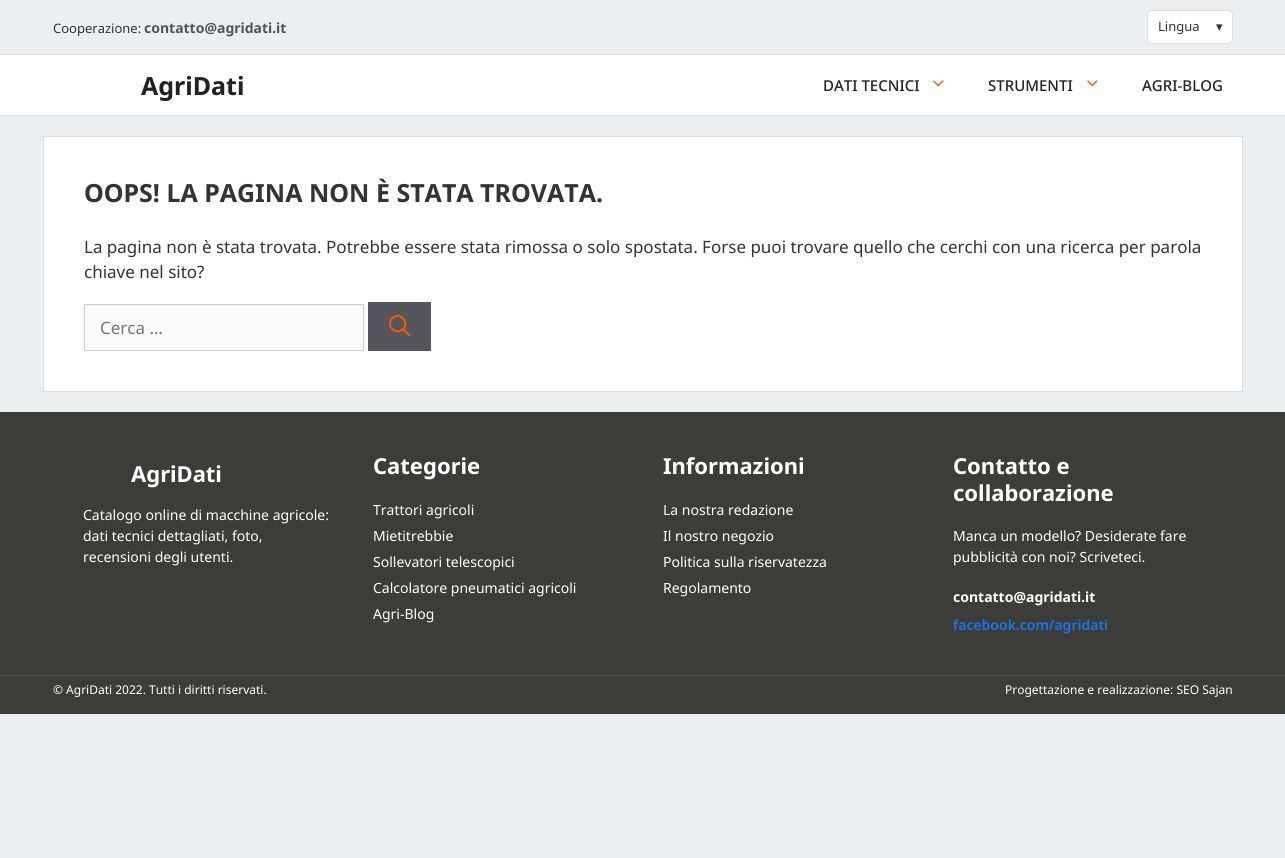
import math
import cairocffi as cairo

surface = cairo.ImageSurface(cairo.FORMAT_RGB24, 1285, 858)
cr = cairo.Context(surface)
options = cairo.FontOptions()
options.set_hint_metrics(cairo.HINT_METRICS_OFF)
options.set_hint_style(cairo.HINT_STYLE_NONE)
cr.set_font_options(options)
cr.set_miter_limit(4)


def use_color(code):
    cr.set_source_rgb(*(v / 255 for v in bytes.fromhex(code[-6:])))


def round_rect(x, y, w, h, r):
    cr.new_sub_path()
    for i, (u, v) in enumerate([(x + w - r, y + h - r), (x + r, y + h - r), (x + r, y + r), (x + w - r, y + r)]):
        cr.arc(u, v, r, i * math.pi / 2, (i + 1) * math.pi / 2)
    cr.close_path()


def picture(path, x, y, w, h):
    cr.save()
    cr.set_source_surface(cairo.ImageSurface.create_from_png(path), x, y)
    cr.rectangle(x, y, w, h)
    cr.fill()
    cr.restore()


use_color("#eceff1")
cr.paint()
use_color("#dddddd")
cr.rectangle(0, 54, 1285, 1)
cr.fill()
cr.select_font_face("Noto Sans")
cr.set_font_size(13)
use_color("#333333")
cr.move_to(53, 33)
cr.show_text("Cooperazione:")
cr.select_font_face("Noto Sans", cairo.FONT_SLANT_NORMAL, cairo.FONT_WEIGHT_BOLD)
cr.set_font_size(14)
use_color("#555555")
cr.move_to(144, 33)
cr.show_text("contatto@agridati.it")
use_color("#ffffff")
round_rect(1147.5, 10.5, 85, 33, 4.5)
cr.fill_preserve()
use_color("#dddddd")
cr.set_line_width(1)
cr.stroke()
cr.select_font_face("Noto Sans")
cr.set_font_size(13)
use_color("#333333")
cr.move_to(1158, 31)
cr.show_text("Lingua")
cr.select_font_face("DejaVu Sans")
cr.move_to(1216, 31)
cr.show_text("▾")
use_color("#ffffff")
cr.rectangle(0, 55, 1285, 60)
cr.fill()
use_color("#dddddd")
cr.rectangle(0, 115, 1285, 1)
cr.fill()
cr.select_font_face("Noto Sans", cairo.FONT_SLANT_NORMAL, cairo.FONT_WEIGHT_BOLD)
cr.set_font_size(25)
use_color("#222222")
cr.move_to(141, 95)
cr.show_text("AgriDati")
cr.select_font_face("Noto Sans Medium")
cr.set_font_size(15)
cr.move_to(823, 91)
cr.show_text("DATI TECNICI")
picture("img1.png", 933, 80, 11, 7)
cr.move_to(988, 91)
cr.show_text("STRUMENTI")
picture("img1.png", 1087, 80, 11, 7)
cr.move_to(1142, 91)
cr.show_text("AGRI-BLOG")
use_color("#ffffff")
cr.rectangle(43.5, 136.5, 1199, 255)
cr.fill_preserve()
use_color("#dddddd")
cr.stroke()
cr.select_font_face("Noto Sans", cairo.FONT_SLANT_NORMAL, cairo.FONT_WEIGHT_BOLD)
cr.set_font_size(25)
use_color("#333333")
cr.move_to(84, 202)
cr.show_text("OOPS! LA PAGINA NON È STATA TROVATA.")
cr.select_font_face("Noto Sans")
cr.set_font_size(17)
cr.move_to(84, 253)
cr.show_text("La pagina non è stata trovata. Potrebbe essere stata rimossa o solo spostata. Forse puoi trovare quello che cerchi con una ricerca per parola")
cr.move_to(84, 278)
cr.show_text("chiave nel sito?")
use_color("#fafafa")
cr.rectangle(84.5, 304.5, 279, 46)
cr.fill_preserve()
use_color("#cccccc")
cr.stroke()
use_color("#757575")
cr.move_to(100, 334)
cr.show_text("Cerca …")
use_color("#55555e")
cr.rectangle(368, 302, 63, 49)
cr.fill()
picture("img2.png", 389, 315, 21, 21)
use_color("#3c3d38")
cr.rectangle(0, 412, 1285, 263)
cr.fill()
use_color("#555555")
cr.rectangle(0, 675, 1285, 1)
cr.fill()
cr.select_font_face("Noto Sans", cairo.FONT_SLANT_NORMAL, cairo.FONT_WEIGHT_BOLD)
cr.set_font_size(22)
use_color("#ffffff")
cr.move_to(131, 482)
cr.show_text("AgriDati")
cr.select_font_face("Noto Sans")
cr.set_font_size(14)
cr.move_to(83, 520)
cr.show_text("Catalogo online di macchine agricole:")
cr.move_to(83, 541)
cr.show_text("dati tecnici dettagliati, foto,")
cr.move_to(83, 562)
cr.show_text("recensioni degli utenti.")
cr.select_font_face("Noto Sans", cairo.FONT_SLANT_NORMAL, cairo.FONT_WEIGHT_BOLD)
cr.set_font_size(22)
cr.move_to(373, 474)
cr.show_text("Categorie")
cr.select_font_face("Noto Sans")
cr.set_font_size(14)
cr.move_to(373, 515)
cr.show_text("Trattori agricoli")
cr.move_to(373, 541)
cr.show_text("Mietitrebbie")
cr.move_to(373, 567)
cr.show_text("Sollevatori telescopici")
cr.move_to(373, 593)
cr.show_text("Calcolatore pneumatici agricoli")
cr.move_to(373, 619)
cr.show_text("Agri-Blog")
cr.select_font_face("Noto Sans", cairo.FONT_SLANT_NORMAL, cairo.FONT_WEIGHT_BOLD)
cr.set_font_size(22)
cr.move_to(663, 474)
cr.show_text("Informazioni")
cr.select_font_face("Noto Sans")
cr.set_font_size(14)
cr.move_to(663, 515)
cr.show_text("La nostra redazione")
cr.move_to(663, 541)
cr.show_text("Il nostro negozio")
cr.move_to(663, 567)
cr.show_text("Politica sulla riservatezza")
cr.move_to(663, 593)
cr.show_text("Regolamento")
cr.select_font_face("Noto Sans", cairo.FONT_SLANT_NORMAL, cairo.FONT_WEIGHT_BOLD)
cr.set_font_size(22)
cr.move_to(953, 474)
cr.show_text("Contatto e")
cr.move_to(953, 501)
cr.show_text("collaborazione")
cr.select_font_face("Noto Sans")
cr.set_font_size(14)
cr.move_to(953, 541)
cr.show_text("Manca un modello? Desiderate fare")
cr.move_to(953, 562)
cr.show_text("pubblicità con noi? Scriveteci.")
cr.select_font_face("Noto Sans", cairo.FONT_SLANT_NORMAL, cairo.FONT_WEIGHT_BOLD)
cr.move_to(953, 602)
cr.show_text("contatto@agridati.it")
cr.select_font_face("Noto Sans SemiBold")
use_color("#1877f2")
cr.move_to(953, 630)
cr.show_text("facebook.com/agridati")
use_color("#3c3d38")
cr.rectangle(0, 676, 1285, 38)
cr.fill()
cr.select_font_face("Noto Sans")
cr.set_font_size(12)
use_color("#ffffff")
cr.move_to(53, 694)
cr.show_text("© AgriDati 2022. Tutti i diritti riservati.")
cr.move_to(1005, 694)
cr.show_text("Progettazione e realizzazione: SEO Sajan")
surface.write_to_png("result.png")
